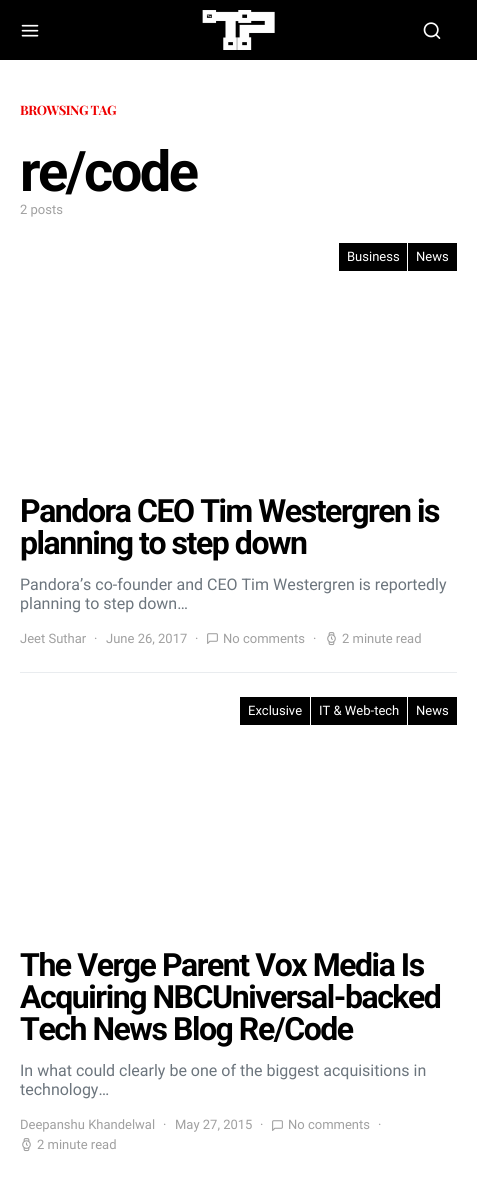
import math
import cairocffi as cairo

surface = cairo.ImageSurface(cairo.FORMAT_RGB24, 477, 1178)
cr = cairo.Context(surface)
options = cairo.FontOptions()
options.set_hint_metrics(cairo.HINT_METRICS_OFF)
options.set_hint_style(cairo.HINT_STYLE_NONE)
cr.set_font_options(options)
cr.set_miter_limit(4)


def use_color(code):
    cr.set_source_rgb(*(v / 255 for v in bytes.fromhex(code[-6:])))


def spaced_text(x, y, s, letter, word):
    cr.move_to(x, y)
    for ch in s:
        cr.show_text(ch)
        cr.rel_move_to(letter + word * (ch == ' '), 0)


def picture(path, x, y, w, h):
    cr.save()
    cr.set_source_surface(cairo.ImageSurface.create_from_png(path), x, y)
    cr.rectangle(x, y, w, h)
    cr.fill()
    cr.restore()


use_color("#ffffff")
cr.paint()
use_color("#000000")
cr.rectangle(0, 0, 477, 60)
cr.fill()
picture("img1.png", 21, 24, 18, 13)
picture("img2.png", 202, 10, 73, 40)
picture("img3.png", 423, 22, 18, 17)
cr.select_font_face("Playfair Display", cairo.FONT_SLANT_NORMAL, cairo.FONT_WEIGHT_BOLD)
cr.set_font_size(13)
use_color("#ef0000")
spaced_text(20, 115, "BROWSING TAG", -0.5, 0)
cr.select_font_face("Roboto", cairo.FONT_SLANT_NORMAL, cairo.FONT_WEIGHT_BOLD)
cr.set_font_size(56)
use_color("#000000")
spaced_text(20, 191, "re/code", -2.5, 0)
cr.select_font_face("Roboto")
cr.set_font_size(13)
use_color("#a0a0a0")
cr.move_to(20, 214)
cr.show_text("2 posts")
use_color("#000000")
cr.rectangle(339, 243, 68, 28)
cr.fill()
use_color("#ffffff")
cr.move_to(347, 261)
cr.show_text("Business")
use_color("#000000")
cr.rectangle(408, 243, 49, 28)
cr.fill()
use_color("#ffffff")
cr.move_to(416, 261)
cr.show_text("News")
cr.select_font_face("Roboto", cairo.FONT_SLANT_NORMAL, cairo.FONT_WEIGHT_BOLD)
cr.set_font_size(32)
use_color("#000000")
spaced_text(20, 522, "Pandora CEO Tim Westergren is", -1.45, 0)
spaced_text(20, 554, "planning to step down", -1.45, 0)
cr.select_font_face("Roboto")
cr.set_font_size(16)
use_color("#6c757d")
cr.move_to(20, 590)
cr.show_text("Pandora’s co-founder and CEO Tim Westergren is reportedly")
cr.move_to(20, 609)
cr.show_text("planning to step down…")
cr.set_font_size(13)
use_color("#a0a0a0")
cr.move_to(20, 643)
cr.show_text("Jeet Suthar")
cr.move_to(94, 643)
cr.show_text("·")
cr.move_to(106, 643)
cr.show_text("June 26, 2017")
cr.move_to(195, 643)
cr.show_text("·")
picture("img4.png", 207, 633, 11, 11)
cr.move_to(223, 643)
cr.show_text("No comments")
cr.move_to(313, 643)
cr.show_text("·")
picture("img5.png", 327, 632, 9, 14)
cr.move_to(342, 643)
cr.show_text("2 minute read")
use_color("#e9ecef")
cr.rectangle(20, 672, 437, 1)
cr.fill()
use_color("#000000")
cr.rectangle(240, 697, 70, 28)
cr.fill()
use_color("#ffffff")
cr.move_to(248, 715)
cr.show_text("Exclusive")
use_color("#000000")
cr.rectangle(311, 697, 96, 28)
cr.fill()
use_color("#ffffff")
cr.move_to(319, 715)
cr.show_text("IT & Web-tech")
use_color("#000000")
cr.rectangle(408, 697, 49, 28)
cr.fill()
use_color("#ffffff")
cr.move_to(416, 715)
cr.show_text("News")
cr.select_font_face("Roboto", cairo.FONT_SLANT_NORMAL, cairo.FONT_WEIGHT_BOLD)
cr.set_font_size(32)
use_color("#000000")
spaced_text(20, 976, "The Verge Parent Vox Media Is", -1.45, 0)
spaced_text(20, 1008, "Acquiring NBCUniversal-backed", -1.45, 0)
spaced_text(20, 1040, "Tech News Blog Re/Code", -1.45, 0)
cr.select_font_face("Roboto")
cr.set_font_size(16)
use_color("#6c757d")
cr.move_to(20, 1076)
cr.show_text("In what could clearly be one of the biggest acquisitions in")
cr.move_to(20, 1095)
cr.show_text("technology…")
cr.set_font_size(13)
use_color("#a0a0a0")
cr.move_to(20, 1129)
cr.show_text("Deepanshu Khandelwal")
cr.move_to(163, 1129)
cr.show_text("·")
cr.move_to(175, 1129)
cr.show_text("May 27, 2015")
cr.move_to(260, 1129)
cr.show_text("·")
picture("img4.png", 272, 1120, 11, 11)
cr.move_to(288, 1129)
cr.show_text("No comments")
cr.move_to(378, 1129)
cr.show_text("·")
picture("img5.png", 22, 1138, 9, 14)
cr.move_to(37, 1149)
cr.show_text("2 minute read")
surface.write_to_png("result.png")
